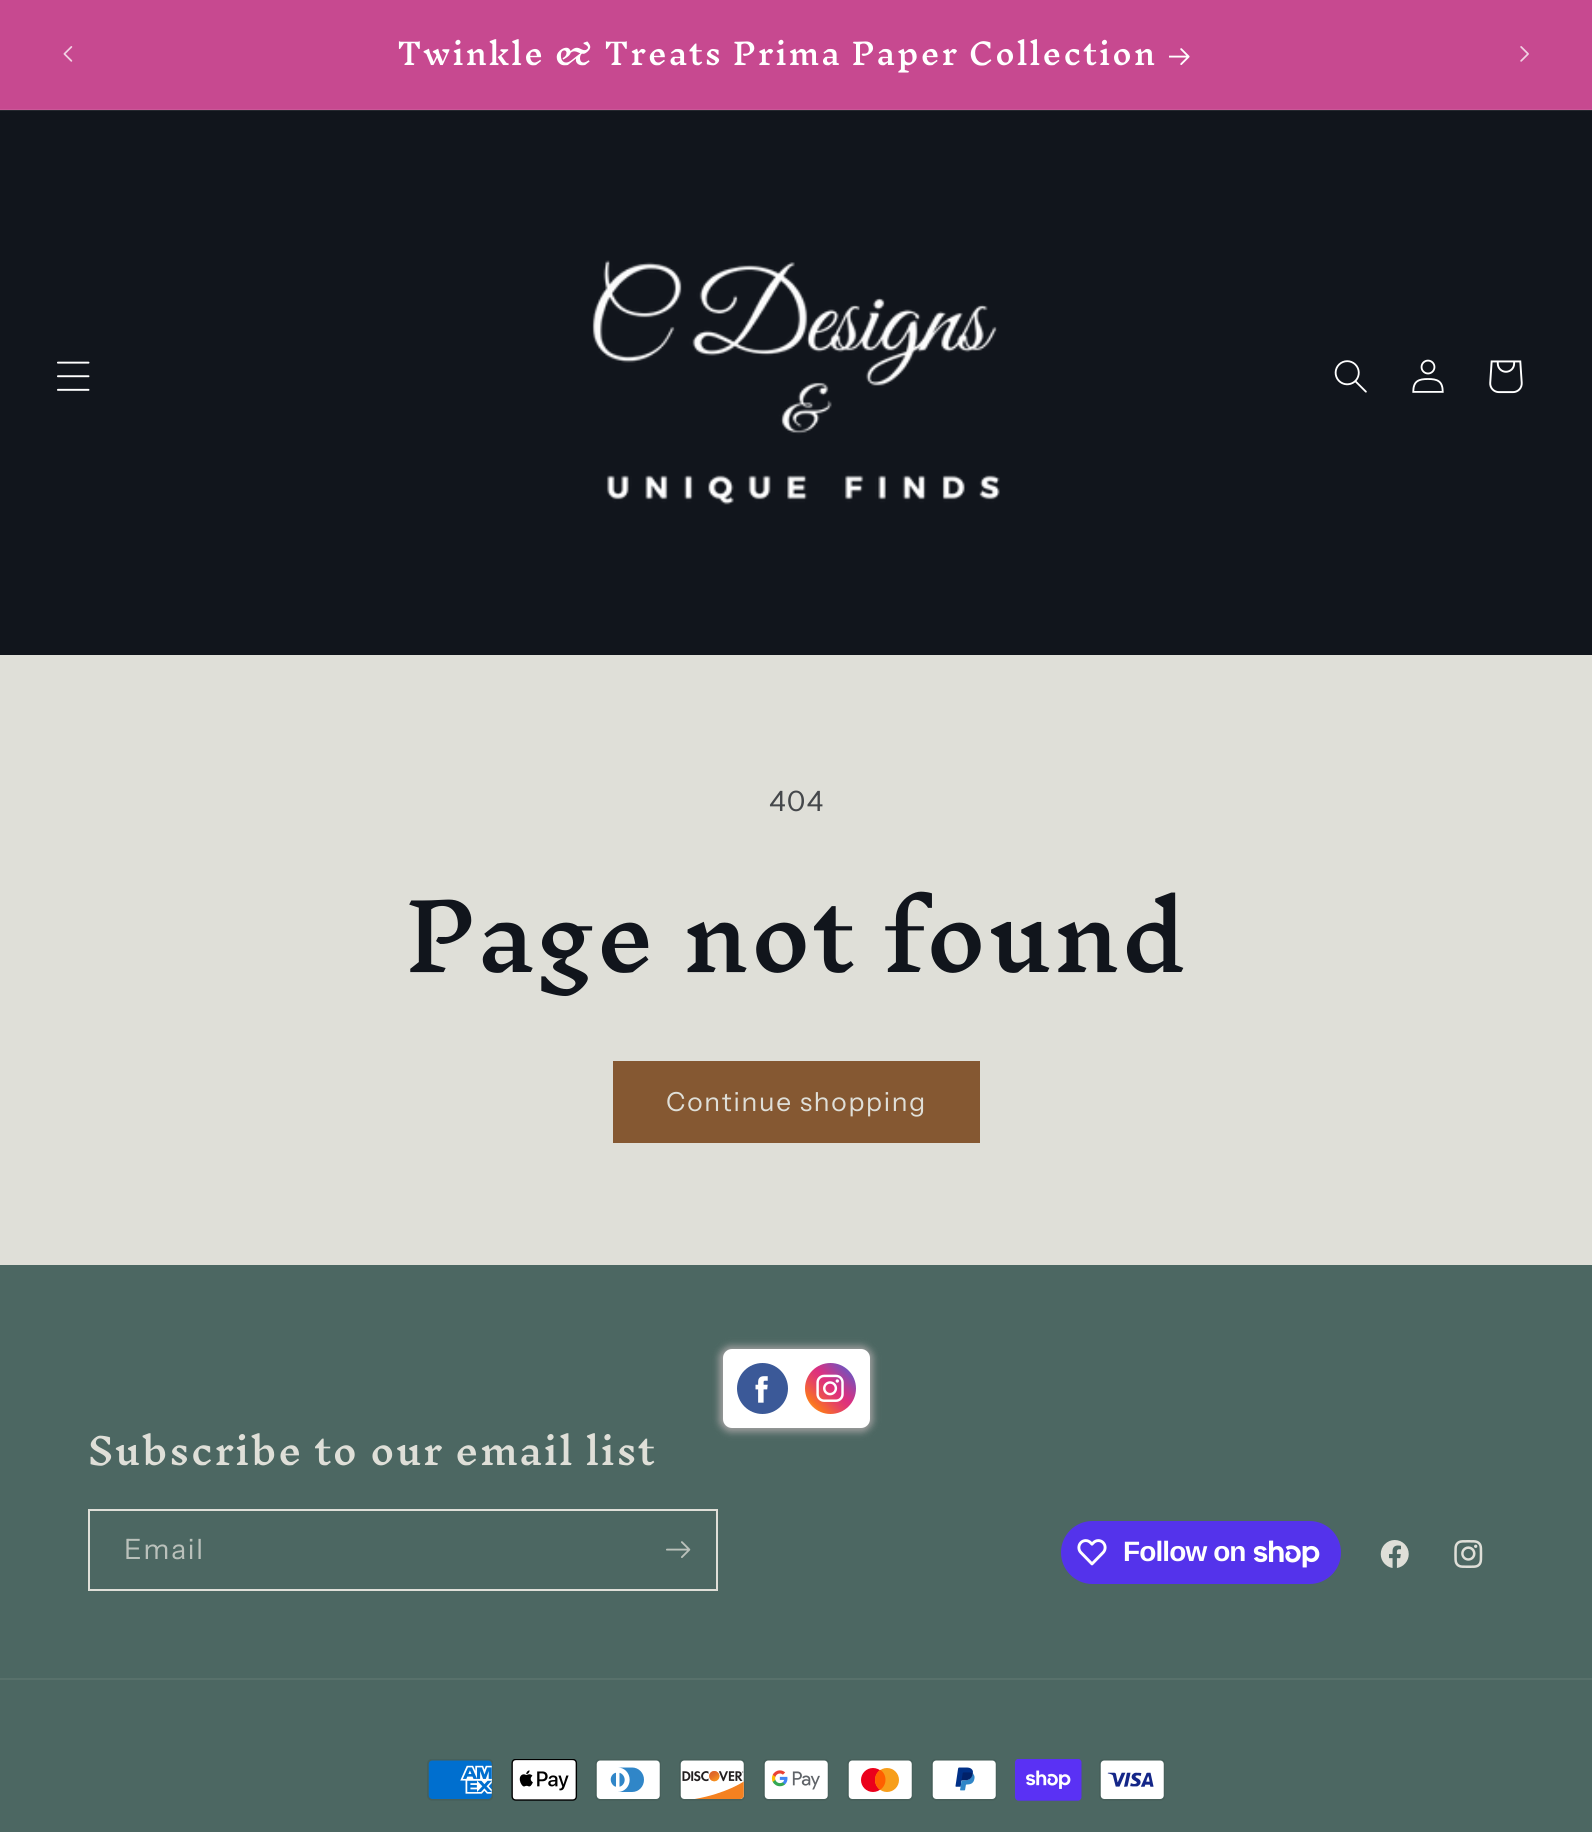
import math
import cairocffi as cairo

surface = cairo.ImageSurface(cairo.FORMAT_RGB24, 1592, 1832)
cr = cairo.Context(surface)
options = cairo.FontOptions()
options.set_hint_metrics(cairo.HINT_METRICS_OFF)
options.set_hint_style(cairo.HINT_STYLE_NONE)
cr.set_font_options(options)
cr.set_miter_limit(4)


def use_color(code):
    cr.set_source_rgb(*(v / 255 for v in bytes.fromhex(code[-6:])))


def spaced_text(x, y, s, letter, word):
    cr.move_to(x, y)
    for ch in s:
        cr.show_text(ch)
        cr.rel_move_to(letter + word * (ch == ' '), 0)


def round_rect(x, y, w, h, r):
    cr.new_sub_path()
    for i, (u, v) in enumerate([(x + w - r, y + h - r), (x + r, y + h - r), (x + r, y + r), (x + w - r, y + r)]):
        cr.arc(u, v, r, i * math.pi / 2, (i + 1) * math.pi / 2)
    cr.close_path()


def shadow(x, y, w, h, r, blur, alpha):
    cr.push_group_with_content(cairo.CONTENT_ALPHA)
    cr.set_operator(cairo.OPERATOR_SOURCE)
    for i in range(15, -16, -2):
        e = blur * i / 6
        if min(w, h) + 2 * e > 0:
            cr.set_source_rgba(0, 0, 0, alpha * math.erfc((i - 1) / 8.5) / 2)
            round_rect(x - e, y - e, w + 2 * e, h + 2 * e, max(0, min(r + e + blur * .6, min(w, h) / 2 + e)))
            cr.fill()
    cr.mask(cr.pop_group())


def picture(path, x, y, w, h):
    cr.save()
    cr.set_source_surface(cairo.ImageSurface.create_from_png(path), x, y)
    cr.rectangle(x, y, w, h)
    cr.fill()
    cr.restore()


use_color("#dfdfd8")
cr.paint()
use_color("#c74990")
cr.rectangle(0, 0, 1592, 109)
cr.fill()
use_color("#cb5899")
cr.rectangle(0, 109, 1592, 1)
cr.fill()
picture("img1.png", 63, 46, 10, 16)
cr.select_font_face("Inknut Antiqua Medium")
cr.set_font_size(29.6)
use_color("#ffffff")
spaced_text(397, 65, "Twinkle & Treats Prima Paper Collection", 1.75, 0)
picture("img2.png", 1169, 48, 21, 17)
picture("img3.png", 1520, 46, 9, 16)
use_color("#11151c")
cr.rectangle(0, 111, 1592, 544)
cr.fill()
use_color("#24282e")
cr.rectangle(0, 110, 1592, 1)
cr.fill()
picture("img4.png", 57, 361, 33, 30)
picture("img5.png", 592, 260, 408, 245)
picture("img6.png", 1334, 360, 33, 33)
picture("img7.png", 1412, 359, 32, 34)
picture("img8.png", 1489, 360, 34, 34)
cr.select_font_face("Instrument Sans")
cr.set_font_size(28)
use_color("#45484b")
spaced_text(769, 811, "404", 1, 0)
cr.select_font_face("Inknut Antiqua Medium")
cr.set_font_size(91)
use_color("#11151c")
spaced_text(405, 972, "Page not found", 1.35, 0)
use_color("#855832")
cr.rectangle(613, 1061, 367, 82)
cr.fill()
cr.select_font_face("Instrument Sans")
cr.set_font_size(26.25)
use_color("#dfdfd8")
spaced_text(666, 1111, "Continue shopping", 1.75, 0)
use_color("#4c6762")
cr.rectangle(0, 1265, 1592, 567)
cr.fill()
use_color("#9e9e9e")
shadow(719, 1346, 154, 86, 12, 3.5, 1)
use_color("#ffffff")
round_rect(723, 1349, 147, 79, 9)
cr.fill()
picture("img9.png", 737, 1363, 51, 51)
picture("img10.png", 805, 1363, 51, 51)
cr.select_font_face("Inknut Antiqua Medium")
cr.set_font_size(36.4)
use_color("#dfdfd8")
spaced_text(88, 1465, "Subscribe to our email list", 1.35, 0)
cr.rectangle(89, 1510, 628, 80)
cr.stroke()
cr.select_font_face("Instrument Sans")
cr.set_font_size(28)
use_color("#bac1bb")
spaced_text(124, 1559, "Email", 1.75, 0)
picture("img11.png", 666, 1541, 25, 17)
use_color("#5433eb")
round_rect(1061, 1521, 280, 63, 31.5)
cr.fill()
picture("img12.png", 1077, 1539, 30, 27)
cr.select_font_face("Liberation Sans", cairo.FONT_SLANT_NORMAL, cairo.FONT_WEIGHT_BOLD)
use_color("#ffffff")
spaced_text(1123, 1561, "Follow on", -0.9, 0)
picture("img13.png", 1253, 1540, 67, 28)
picture("img14.png", 1380, 1540, 29, 28)
picture("img15.png", 1454, 1540, 29, 28)
use_color("#58716b")
cr.rectangle(0, 1678, 1592, 2)
cr.fill()
picture("img16.png", 427, 1759, 66, 42)
picture("img17.png", 511, 1759, 67, 42)
picture("img18.png", 595, 1759, 66, 42)
picture("img19.png", 679, 1759, 66, 42)
picture("img20.png", 763, 1759, 66, 42)
picture("img21.png", 847, 1759, 66, 42)
picture("img22.png", 931, 1759, 66, 42)
picture("img23.png", 1015, 1759, 67, 42)
picture("img24.png", 1099, 1759, 66, 42)
surface.write_to_png("result.png")
